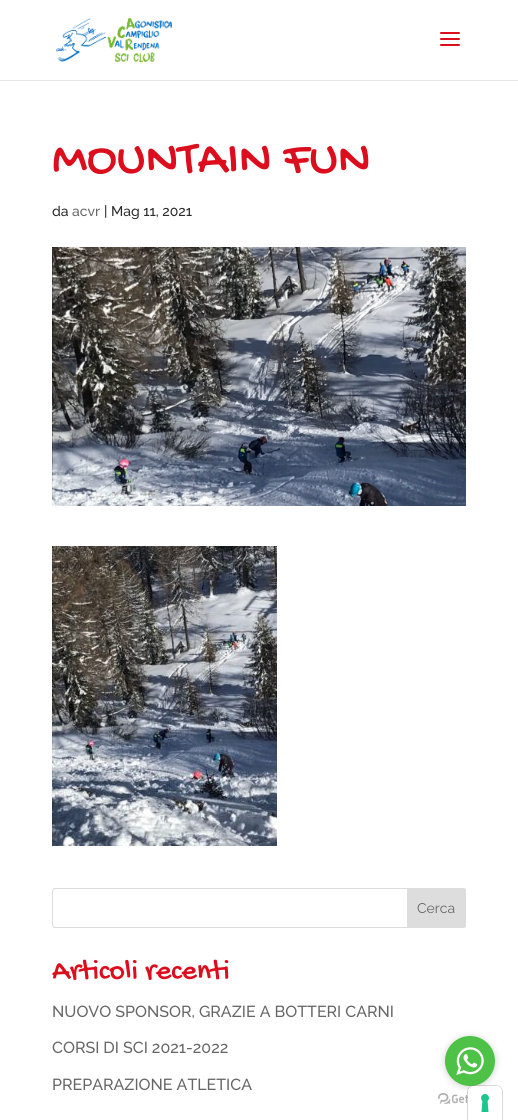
import math
import cairocffi as cairo

surface = cairo.ImageSurface(cairo.FORMAT_RGB24, 518, 1120)
cr = cairo.Context(surface)
options = cairo.FontOptions()
options.set_hint_metrics(cairo.HINT_METRICS_OFF)
options.set_hint_style(cairo.HINT_STYLE_NONE)
cr.set_font_options(options)
cr.set_miter_limit(4)


def use_color(code):
    cr.set_source_rgb(*(v / 255 for v in bytes.fromhex(code[-6:])))


def round_rect(x, y, w, h, r):
    cr.new_sub_path()
    for i, (u, v) in enumerate([(x + w - r, y + h - r), (x + r, y + h - r), (x + r, y + r), (x + w - r, y + r)]):
        cr.arc(u, v, r, i * math.pi / 2, (i + 1) * math.pi / 2)
    cr.close_path()


def shadow(x, y, w, h, r, blur, alpha):
    cr.push_group_with_content(cairo.CONTENT_ALPHA)
    cr.set_operator(cairo.OPERATOR_SOURCE)
    for i in range(15, -16, -2):
        e = blur * i / 6
        if min(w, h) + 2 * e > 0:
            cr.set_source_rgba(0, 0, 0, alpha * math.erfc((i - 1) / 8.5) / 2)
            round_rect(x - e, y - e, w + 2 * e, h + 2 * e, max(0, min(r + e + blur * .6, min(w, h) / 2 + e)))
            cr.fill()
    cr.mask(cr.pop_group())


def picture(path, x, y, w, h):
    cr.save()
    cr.set_source_surface(cairo.ImageSurface.create_from_png(path), x, y)
    cr.rectangle(x, y, w, h)
    cr.fill()
    cr.restore()


use_color("#ffffff")
cr.paint()
use_color("#e6e6e6")
cr.rectangle(0, 80, 518, 1)
cr.fill()
picture("img1.png", 56, 18, 116, 44)
picture("img2.png", 440, 32, 20, 14)
cr.select_font_face("Gochi Hand")
cr.set_font_size(50)
use_color("#dc0d1d")
cr.move_to(52, 171)
cr.show_text("MOUNTAIN FUN")
cr.select_font_face("Raleway Thin")
cr.set_font_size(14)
use_color("#2b2b2b")
cr.move_to(52, 216)
cr.show_text("da")
use_color("#666666")
cr.move_to(72, 216)
cr.show_text("acvr")
use_color("#2b2b2b")
cr.move_to(104, 216)
cr.show_text("| Mag 11, 2021")
picture("img3.png", 52, 247, 414, 259)
picture("img4.png", 52, 546, 225, 300)
round_rect(52.5, 888.5, 413, 39, 2.5)
use_color("#dddddd")
cr.set_line_width(1)
cr.stroke()
cr.new_path()
cr.move_to(407.5, 888.5)
cr.line_to(463, 888.5)
cr.curve_to(464.5, 888.5, 465.5, 889.5, 465.5, 891)
cr.line_to(465.5, 925)
cr.curve_to(465.5, 926.5, 464.5, 927.5, 463, 927.5)
cr.line_to(407.5, 927.5)
cr.close_path()
cr.fill_preserve()
cr.stroke()
cr.select_font_face("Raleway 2 Thin")
use_color("#666666")
cr.move_to(417, 913)
cr.show_text("Cerca")
cr.select_font_face("Gochi Hand")
cr.set_font_size(30)
use_color("#dc0d1d")
cr.move_to(52, 978)
cr.show_text("Articoli recenti")
cr.select_font_face("Raleway Thin")
cr.set_font_size(16)
use_color("#666666")
cr.move_to(52, 1017)
cr.show_text("NUOVO SPONSOR, GRAZIE A BOTTERI CARNI")
cr.move_to(52, 1053)
cr.show_text("CORSI DI SCI 2021-2022")
cr.move_to(52, 1090)
cr.show_text("PREPARAZIONE ATLETICA")
picture("img6.png", 438, 1093, 30, 11)
use_color("#888888")
shadow(445, 1037, 50, 50, 25, 3.5, 0.4)
use_color("#4dc247")
cr.arc(470, 1061, 25, 0, 2 * math.pi)
cr.fill()
picture("img5.png", 456, 1047, 28, 28)
cr.new_path()
cr.move_to(474, 1085.5)
cr.line_to(496, 1085.5)
cr.curve_to(499.5, 1085.5, 502.5, 1088.5, 502.5, 1092)
cr.line_to(502.5, 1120.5)
cr.line_to(467.5, 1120.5)
cr.line_to(467.5, 1092)
cr.curve_to(467.5, 1088.5, 470.5, 1085.5, 474, 1085.5)
cr.close_path()
cr.set_source_rgba(0, 0, 0, 0.15)
cr.stroke()
use_color("#ffffff")
cr.new_path()
cr.move_to(474, 1086)
cr.line_to(496, 1086)
cr.curve_to(499.5, 1086, 502, 1088.5, 502, 1092)
cr.line_to(502, 1120)
cr.line_to(468, 1120)
cr.line_to(468, 1092)
cr.curve_to(468, 1088.5, 470.5, 1086, 474, 1086)
cr.close_path()
cr.fill()
picture("img7.png", 481, 1094, 8, 18)
surface.write_to_png("result.png")
